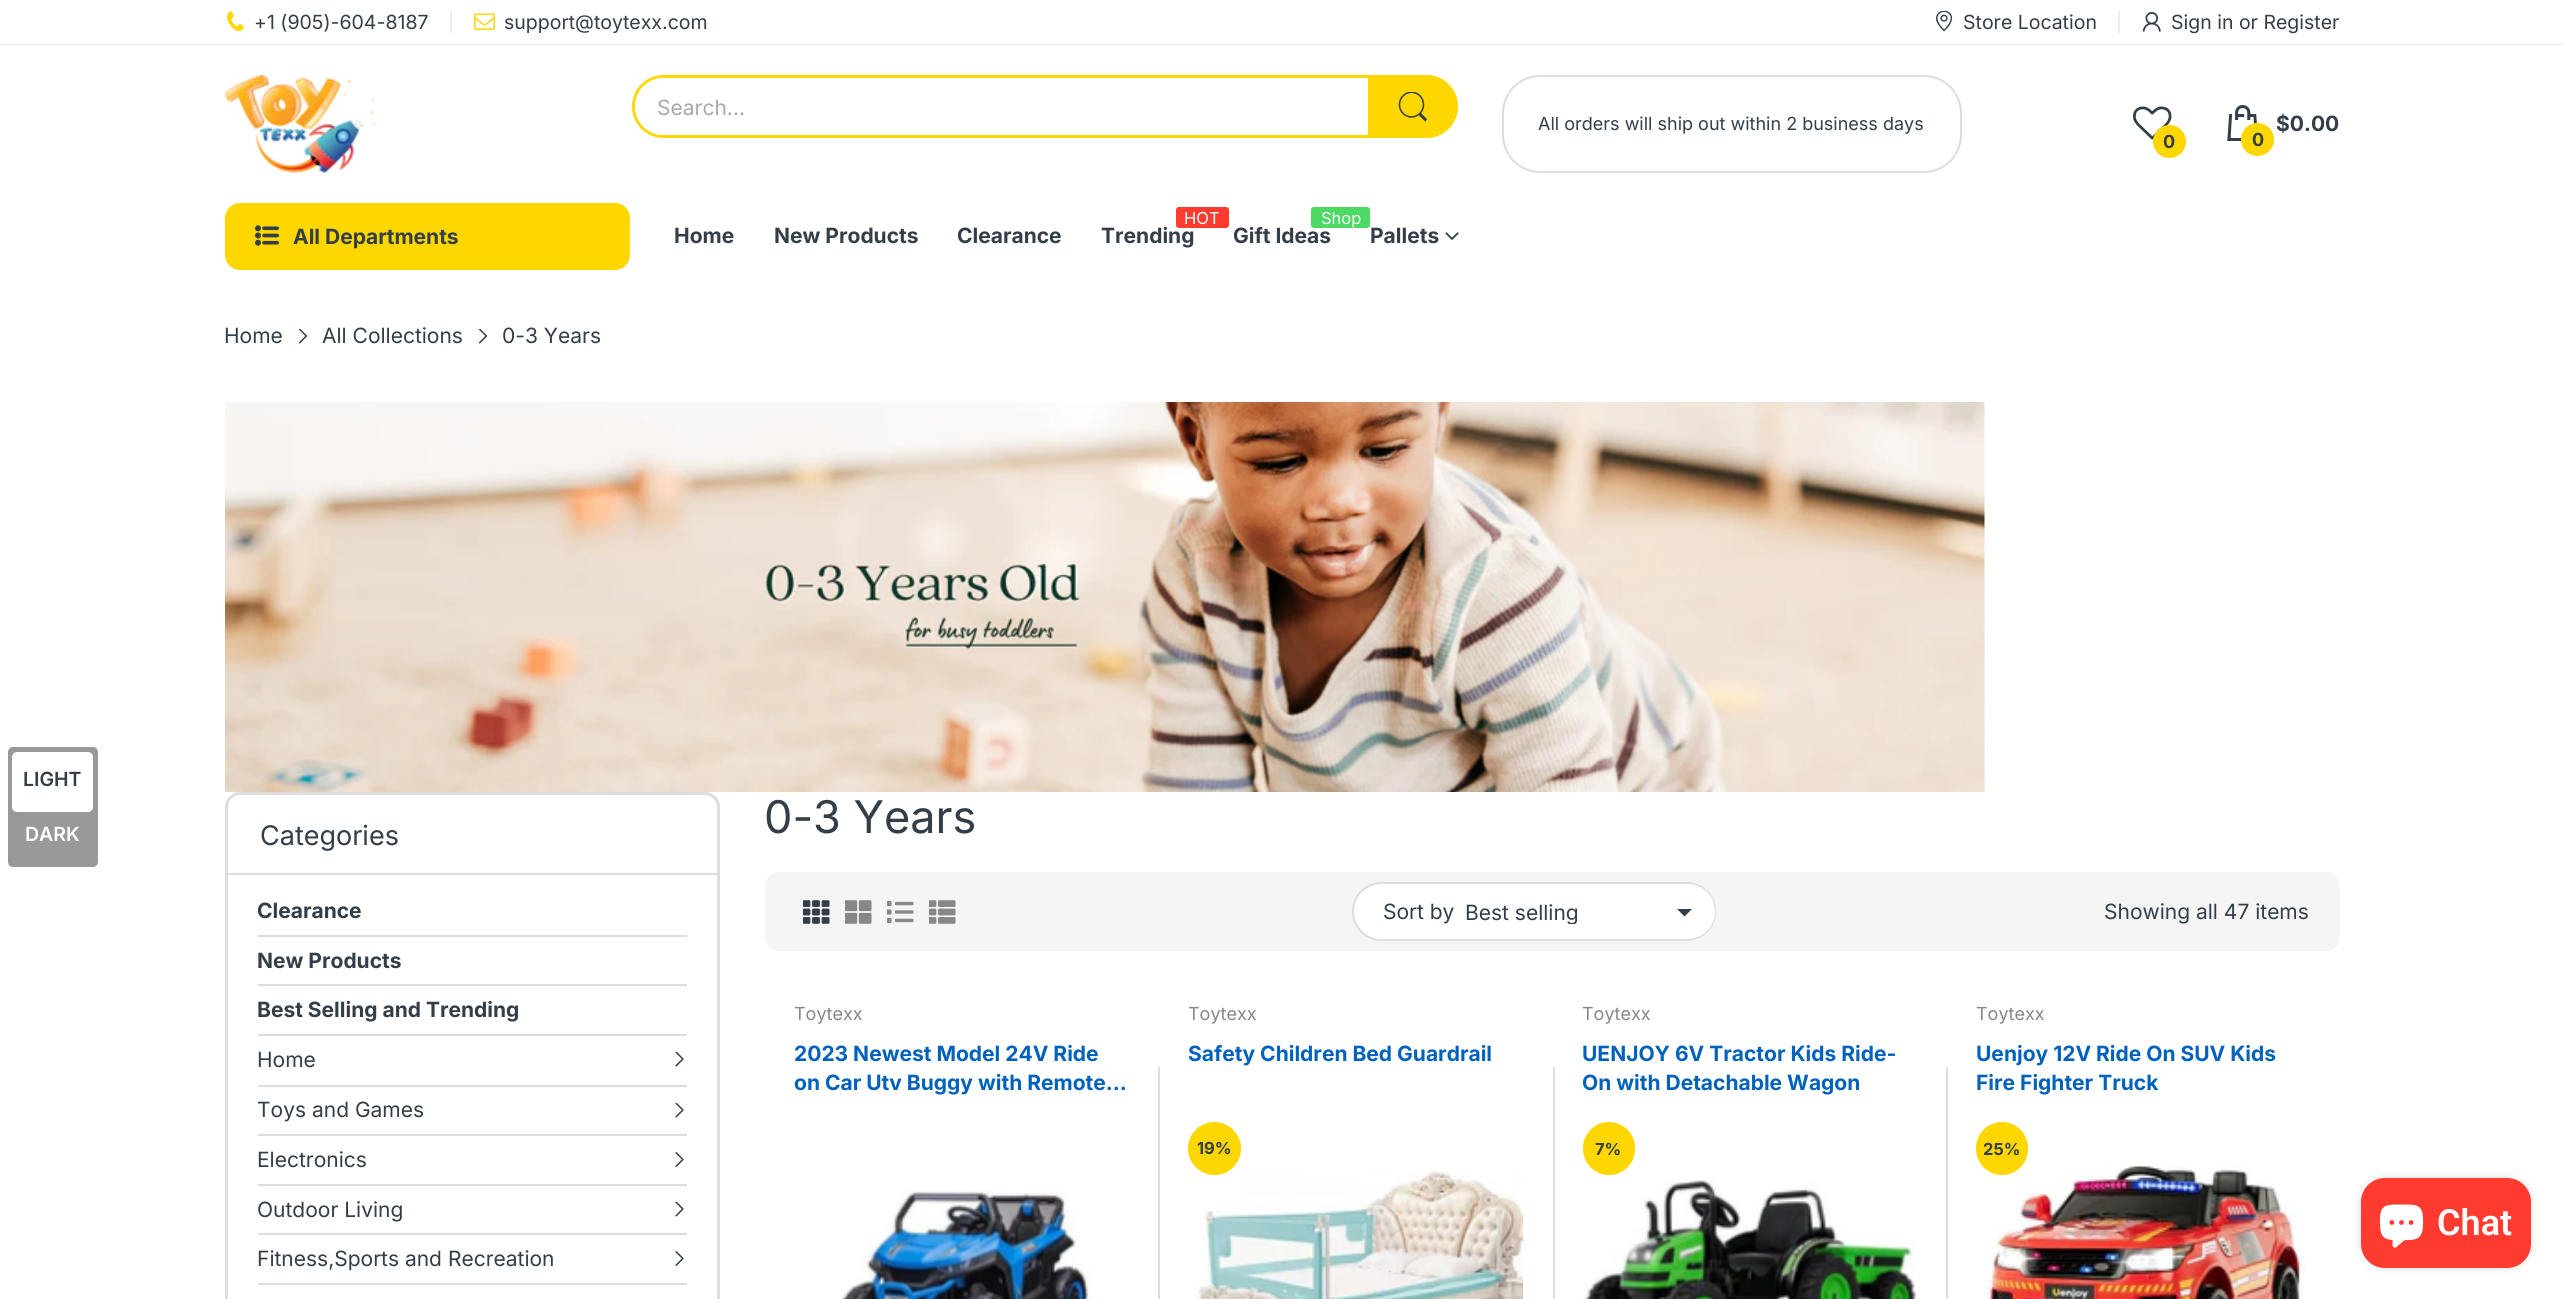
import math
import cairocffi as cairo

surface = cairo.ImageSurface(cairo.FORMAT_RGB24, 2563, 1299)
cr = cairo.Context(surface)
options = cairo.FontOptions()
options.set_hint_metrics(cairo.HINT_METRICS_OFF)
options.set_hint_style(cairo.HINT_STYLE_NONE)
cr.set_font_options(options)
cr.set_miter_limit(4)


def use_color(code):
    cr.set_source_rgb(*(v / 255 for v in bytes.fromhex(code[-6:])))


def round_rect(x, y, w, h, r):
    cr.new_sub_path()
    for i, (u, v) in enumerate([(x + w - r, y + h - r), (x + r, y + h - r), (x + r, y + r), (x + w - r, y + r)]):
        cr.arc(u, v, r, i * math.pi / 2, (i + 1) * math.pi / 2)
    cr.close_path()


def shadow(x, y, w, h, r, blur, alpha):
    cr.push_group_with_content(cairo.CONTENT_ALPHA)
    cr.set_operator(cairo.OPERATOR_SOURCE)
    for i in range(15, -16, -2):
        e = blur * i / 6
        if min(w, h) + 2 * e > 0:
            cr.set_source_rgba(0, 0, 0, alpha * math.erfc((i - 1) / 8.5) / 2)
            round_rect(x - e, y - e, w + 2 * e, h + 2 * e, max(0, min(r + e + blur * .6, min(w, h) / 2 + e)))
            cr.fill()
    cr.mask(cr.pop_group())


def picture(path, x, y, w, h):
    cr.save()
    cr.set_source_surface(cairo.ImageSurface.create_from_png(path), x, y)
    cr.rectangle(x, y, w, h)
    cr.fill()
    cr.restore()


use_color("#ffffff")
cr.paint()
use_color("#999999")
round_rect(8, 747, 90, 120, 5)
cr.fill()
use_color("#ffffff")
round_rect(12, 752, 81, 60, 5)
cr.fill()
cr.select_font_face("Inter SemiBold")
cr.set_font_size(19.5)
use_color("#333e48")
cr.move_to(23, 786)
cr.show_text("LIGHT")
use_color("#ffffff")
cr.move_to(25, 841)
cr.show_text("DARK")
use_color("#ebeced")
cr.rectangle(0, 44, 2563, 1)
cr.fill()
picture("img1.png", 227, 11, 17, 21)
cr.select_font_face("Inter")
use_color("#333e48")
cr.move_to(254, 29)
cr.show_text("+1 (905)-604-8187")
use_color("#ebeced")
cr.rectangle(450, 11, 2, 22)
cr.fill()
picture("img2.png", 474, 13, 21, 17)
use_color("#333e48")
cr.move_to(504, 29)
cr.show_text("support@toytexx.com")
picture("img3.png", 1935, 11, 18, 21)
cr.move_to(1963, 29)
cr.show_text("Store Location")
use_color("#ebeced")
cr.rectangle(2118, 11, 2, 22)
cr.fill()
picture("img4.png", 2142, 12, 19, 20)
use_color("#333e48")
cr.move_to(2171, 29)
cr.show_text("Sign in or Register")
picture("img5.png", 225, 75, 150, 98)
round_rect(633.5, 76.5, 822, 60, 30)
use_color("#fed700")
cr.set_line_width(3)
cr.stroke()
use_color("#ffffff")
round_rect(635, 78, 819, 57, 28.5)
cr.fill()
cr.set_font_size(21)
use_color("#a9a9a9")
cr.move_to(657, 115)
cr.show_text("Search...")
use_color("#fed700")
cr.new_path()
cr.move_to(1369, 76)
cr.line_to(1426.5, 76)
cr.curve_to(1443.5, 76, 1457, 89.5, 1457, 106.5)
cr.curve_to(1457, 123.5, 1443.5, 137, 1426.5, 137)
cr.line_to(1369, 137)
cr.close_path()
cr.fill_preserve()
cr.set_line_width(2)
cr.stroke()
picture("img6.png", 1398, 92, 30, 30)
round_rect(1503, 76, 458, 96, 37)
use_color("#dddddd")
cr.stroke()
cr.set_font_size(18)
use_color("#333e48")
cr.move_to(1538, 130)
cr.show_text("All orders will ship out within 2 business days")
picture("img7.png", 2133, 106, 39, 34)
use_color("#fed700")
cr.arc(2169.5, 141.5, 16.5, 0, 2 * math.pi)
cr.fill()
cr.select_font_face("Inter", cairo.FONT_SLANT_NORMAL, cairo.FONT_WEIGHT_BOLD)
use_color("#333e48")
cr.move_to(2163, 148)
cr.show_text("0")
cr.set_font_size(21)
cr.move_to(2276, 131)
cr.show_text("$0.00")
picture("img8.png", 2227, 105, 30, 36)
use_color("#fed700")
cr.arc(2257.5, 139.5, 16.5, 0, 2 * math.pi)
cr.fill()
cr.set_font_size(18)
use_color("#333e48")
cr.move_to(2252, 146)
cr.show_text("0")
use_color("#fed700")
round_rect(225, 203, 405, 67, 15)
cr.fill()
picture("img9.png", 255, 225, 24, 21)
cr.set_font_size(21)
use_color("#333e48")
cr.move_to(293, 244)
cr.show_text("All Departments")
cr.move_to(674, 243)
cr.show_text("Home")
cr.move_to(774, 243)
cr.show_text("New Products")
cr.move_to(957, 243)
cr.show_text("Clearance")
cr.move_to(1101, 243)
cr.show_text("Trending")
use_color("#ff3b30")
round_rect(1176, 207, 53, 21, 3)
cr.fill()
cr.select_font_face("Inter")
cr.set_font_size(16.5)
use_color("#ffffff")
cr.move_to(1184, 224)
cr.show_text("HOT")
cr.select_font_face("Inter", cairo.FONT_SLANT_NORMAL, cairo.FONT_WEIGHT_BOLD)
cr.set_font_size(21)
use_color("#333e48")
cr.move_to(1233, 243)
cr.show_text("Gift Ideas")
use_color("#4cd964")
round_rect(1311, 207, 59, 21, 3)
cr.fill()
cr.select_font_face("Inter")
cr.set_font_size(16.5)
use_color("#ffffff")
cr.move_to(1321, 224)
cr.show_text("Shop")
cr.select_font_face("Inter", cairo.FONT_SLANT_NORMAL, cairo.FONT_WEIGHT_BOLD)
cr.set_font_size(21)
use_color("#333e48")
cr.move_to(1370, 243)
cr.show_text("Pallets")
picture("img10.png", 1445, 232, 14, 8)
cr.select_font_face("Inter")
cr.move_to(224, 343)
cr.show_text("Home")
picture("img11.png", 298, 329, 9, 15)
cr.move_to(322, 343)
cr.show_text("All Collections")
picture("img11.png", 478, 329, 9, 15)
cr.move_to(502, 343)
cr.show_text("0-3 Years")
picture("img12.png", 225, 402, 1760, 390)
round_rect(226.5, 793.5, 492, 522, 13.5)
use_color("#dddddd")
cr.set_line_width(3)
cr.stroke()
cr.rectangle(228, 873, 489, 2)
cr.fill()
cr.set_font_size(27)
use_color("#333e48")
cr.move_to(260, 845)
cr.show_text("Categories")
use_color("#dddddd")
cr.rectangle(258, 935, 429, 2)
cr.fill()
cr.select_font_face("Inter", cairo.FONT_SLANT_NORMAL, cairo.FONT_WEIGHT_BOLD)
cr.set_font_size(21)
use_color("#333e48")
cr.move_to(257, 918)
cr.show_text("Clearance")
use_color("#dddddd")
cr.rectangle(258, 984, 429, 2)
cr.fill()
use_color("#333e48")
cr.move_to(257, 968)
cr.show_text("New Products")
use_color("#dddddd")
cr.rectangle(258, 1034, 429, 2)
cr.fill()
use_color("#333e48")
cr.move_to(257, 1017)
cr.show_text("Best Selling and Trending")
use_color("#dddddd")
cr.rectangle(258, 1085, 429, 2)
cr.fill()
cr.select_font_face("Inter")
use_color("#333e48")
cr.move_to(257, 1067)
cr.show_text("Home")
picture("img13.png", 675, 1052, 9, 15)
use_color("#dddddd")
cr.rectangle(258, 1134, 429, 2)
cr.fill()
use_color("#333e48")
cr.move_to(257, 1117)
cr.show_text("Toys and Games")
picture("img13.png", 675, 1103, 9, 15)
use_color("#dddddd")
cr.rectangle(258, 1184, 429, 2)
cr.fill()
use_color("#333e48")
cr.move_to(257, 1167)
cr.show_text("Electronics")
picture("img14.png", 675, 1152, 9, 15)
use_color("#dddddd")
cr.rectangle(258, 1233, 429, 2)
cr.fill()
use_color("#333e48")
cr.move_to(257, 1217)
cr.show_text("Outdoor Living")
picture("img13.png", 675, 1202, 9, 15)
use_color("#dddddd")
cr.rectangle(258, 1283, 429, 2)
cr.fill()
use_color("#333e48")
cr.move_to(257, 1266)
cr.show_text("Fitness,Sports and Recreation")
picture("img14.png", 675, 1251, 9, 15)
cr.set_font_size(45)
cr.move_to(764, 833)
cr.show_text("0-3 Years")
use_color("#f5f5f5")
round_rect(765, 872, 1575, 79, 14)
cr.fill()
picture("img15.png", 803, 900, 27, 24)
picture("img16.png", 845, 900, 27, 24)
picture("img17.png", 887, 901, 27, 22)
picture("img18.png", 929, 900, 27, 24)
use_color("#ffffff")
round_rect(1353, 883, 362, 57, 28.5)
cr.fill_preserve()
use_color("#dddddd")
cr.set_line_width(2)
cr.stroke()
cr.set_font_size(21)
use_color("#333e48")
cr.move_to(1383, 919)
cr.show_text("Sort by")
use_color("#ffffff")
round_rect(1455, 884, 260, 55, 27.5)
cr.fill()
cr.save()
cr.rectangle(1466, 899, 189, 25)
cr.clip()
use_color("#333e48")
cr.move_to(1465, 920)
cr.show_text("Best selling")
cr.restore()
use_color("#333e48")
cr.set_fill_rule(cairo.FILL_RULE_EVEN_ODD)
cr.new_path()
cr.move_to(1677, 909)
cr.line_to(1684.5, 916.5)
cr.line_to(1692, 909)
cr.close_path()
cr.fill()
cr.move_to(2104, 919)
cr.show_text("Showing all 47 items")
cr.set_font_size(18)
use_color("#878787")
cr.move_to(794, 1020)
cr.show_text("Toytexx")
cr.select_font_face("Inter", cairo.FONT_SLANT_NORMAL, cairo.FONT_WEIGHT_BOLD)
cr.set_font_size(21)
use_color("#0062bd")
cr.move_to(794, 1061)
cr.show_text("2023 Newest Model 24V Ride")
cr.move_to(794, 1090)
cr.show_text("on Car Utv Buggy with Remote…")
picture("img19.png", 840, 1190, 252, 109)
use_color("#dddddd")
cr.rectangle(1158, 1067, 2, 232)
cr.fill()
cr.select_font_face("Inter")
cr.set_font_size(18)
use_color("#878787")
cr.move_to(1188, 1020)
cr.show_text("Toytexx")
cr.select_font_face("Inter", cairo.FONT_SLANT_NORMAL, cairo.FONT_WEIGHT_BOLD)
cr.set_font_size(21)
use_color("#0062bd")
cr.move_to(1188, 1061)
cr.show_text("Safety Children Bed Guardrail")
picture("img20.png", 1196, 1170, 327, 129)
use_color("#fed700")
cr.arc(1214.5, 1148.5, 26.5, 0, 2 * math.pi)
cr.fill()
cr.set_font_size(16.5)
use_color("#333e48")
cr.move_to(1197, 1154)
cr.show_text("19%")
use_color("#dddddd")
cr.rectangle(1553, 1067, 2, 232)
cr.fill()
cr.select_font_face("Inter")
cr.set_font_size(18)
use_color("#878787")
cr.move_to(1582, 1020)
cr.show_text("Toytexx")
cr.select_font_face("Inter", cairo.FONT_SLANT_NORMAL, cairo.FONT_WEIGHT_BOLD)
cr.set_font_size(21)
use_color("#0062bd")
cr.move_to(1582, 1061)
cr.show_text("UENJOY 6V Tractor Kids Ride-")
cr.save()
cr.set_fill_rule(cairo.FILL_RULE_WINDING)
cr.rectangle(1583, 1038, 333, 59)
cr.clip()
cr.move_to(1582, 1090)
cr.show_text("On with Detachable Wagon")
cr.restore()
use_color("#fed700")
round_rect(1583, 1122, 52, 53, 26)
cr.fill()
cr.set_font_size(16.5)
use_color("#333e48")
cr.move_to(1595, 1155)
cr.show_text("7%")
picture("img21.png", 1583, 1180, 333, 119)
use_color("#dddddd")
cr.rectangle(1946, 1067, 2, 232)
cr.fill()
cr.select_font_face("Inter")
cr.set_font_size(18)
use_color("#878787")
cr.move_to(1976, 1020)
cr.show_text("Toytexx")
cr.select_font_face("Inter", cairo.FONT_SLANT_NORMAL, cairo.FONT_WEIGHT_BOLD)
cr.set_font_size(21)
use_color("#0062bd")
cr.move_to(1976, 1061)
cr.show_text("Uenjoy 12V Ride On SUV Kids")
cr.move_to(1976, 1090)
cr.show_text("Fire Fighter Truck")
picture("img22.png", 1987, 1165, 319, 134)
use_color("#fed700")
round_rect(1976, 1122, 52, 53, 26)
cr.fill()
cr.set_font_size(16.5)
use_color("#333e48")
cr.move_to(1983, 1155)
cr.show_text("25%")
use_color("#000000")
shadow(2361, 1178, 170, 90, 24, 4, 0.15)
use_color("#ff3b30")
round_rect(2361, 1178, 170, 90, 24)
cr.fill()
picture("img23.png", 2379, 1204, 45, 44)
cr.select_font_face("Roboto SemiBold")
cr.set_font_size(36)
use_color("#ffffff")
cr.move_to(2437, 1235)
cr.show_text("Chat")
surface.write_to_png("result.png")
